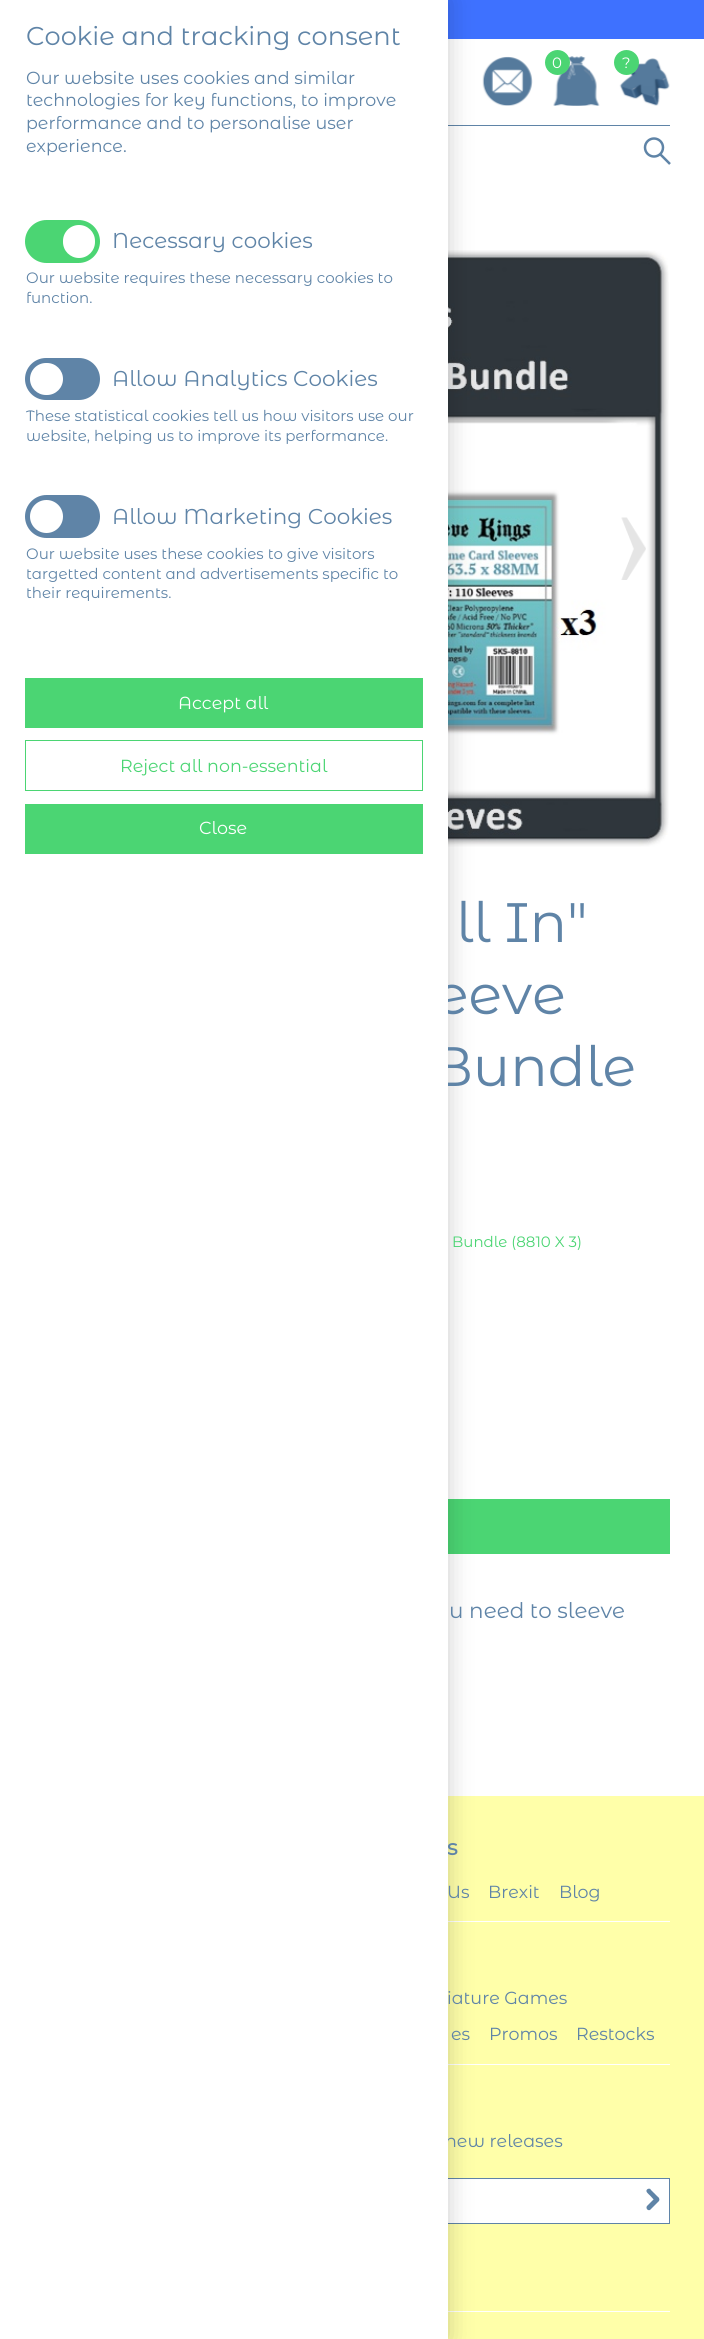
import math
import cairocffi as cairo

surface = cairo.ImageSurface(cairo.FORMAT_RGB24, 704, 2339)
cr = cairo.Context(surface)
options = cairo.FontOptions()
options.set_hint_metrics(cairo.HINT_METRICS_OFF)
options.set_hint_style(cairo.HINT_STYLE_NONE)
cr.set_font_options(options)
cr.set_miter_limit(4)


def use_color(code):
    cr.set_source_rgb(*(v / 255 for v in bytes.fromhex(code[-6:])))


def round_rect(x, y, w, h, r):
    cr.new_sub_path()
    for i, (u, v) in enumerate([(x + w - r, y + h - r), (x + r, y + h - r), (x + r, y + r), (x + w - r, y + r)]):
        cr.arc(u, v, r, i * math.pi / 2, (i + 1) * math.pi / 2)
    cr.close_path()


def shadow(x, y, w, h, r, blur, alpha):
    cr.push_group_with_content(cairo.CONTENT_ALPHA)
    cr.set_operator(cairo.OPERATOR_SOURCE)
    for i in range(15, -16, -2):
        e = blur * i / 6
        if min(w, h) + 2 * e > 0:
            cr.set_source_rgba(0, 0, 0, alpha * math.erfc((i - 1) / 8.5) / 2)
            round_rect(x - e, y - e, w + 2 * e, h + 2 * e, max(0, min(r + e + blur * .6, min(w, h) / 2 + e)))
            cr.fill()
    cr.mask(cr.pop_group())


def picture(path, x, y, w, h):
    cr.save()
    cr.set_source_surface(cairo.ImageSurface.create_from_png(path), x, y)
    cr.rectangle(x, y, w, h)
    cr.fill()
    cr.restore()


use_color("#ffffff")
cr.paint()
use_color("#3e71ff")
cr.rectangle(448, 0, 256, 39)
cr.fill()
picture("img1.png", 482, 56, 51, 50)
use_color("#5f84a7")
cr.rectangle(448, 125, 222, 1)
cr.fill()
picture("img4.png", 448, 250, 221, 597)
use_color("#4bd573")
cr.rectangle(448, 1499, 222, 55)
cr.fill()
use_color("#ffffa9")
cr.rectangle(448, 1796, 256, 543)
cr.fill()
use_color("#ffffff")
cr.rectangle(448, 1921, 222, 1)
cr.fill()
cr.rectangle(448, 2064, 222, 1)
cr.fill()
cr.rectangle(448, 2179, 221, 44)
cr.fill()
cr.rectangle(35.5, 2178.5, 634, 45)
use_color("#5f84a7")
cr.set_line_width(1)
cr.stroke()
use_color("#ffffff")
cr.rectangle(448, 2311, 222, 1)
cr.fill()
use_color("#000000")
shadow(0, 0, 448, 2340, 0, 12.5, 0.2)
cr.select_font_face("Montserrat Alternates")
cr.set_font_size(55.5)
use_color("#5f84a7")
cr.move_to(435, 1014)
cr.show_text("eeve")
cr.move_to(431, 1086)
cr.show_text("Bundle")
cr.select_font_face("Montserrat Alternates", cairo.FONT_SLANT_NORMAL, cairo.FONT_WEIGHT_BOLD)
cr.set_font_size(21.5)
cr.move_to(447, 1855)
cr.show_text("s")
cr.select_font_face("Montserrat Alternates")
cr.set_font_size(17.5)
cr.move_to(445, 2147)
cr.show_text("new releases")
use_color("#ffffff")
cr.rectangle(0, 0, 448, 2339)
cr.fill()
cr.set_font_size(25.75)
use_color("#5f84a7")
cr.move_to(26, 45)
cr.show_text("Cookie and tracking consent")
cr.set_font_size(17.5)
cr.move_to(26, 84)
cr.show_text("Our website uses cookies and similar")
cr.move_to(26, 106)
cr.show_text("technologies for key functions, to improve")
cr.move_to(26, 129)
cr.show_text("performance and to personalise user")
cr.move_to(26, 152)
cr.show_text("experience.")
use_color("#4bd573")
round_rect(25, 220, 75, 43, 21.5)
cr.fill()
use_color("#ffffff")
round_rect(63, 225, 32, 33, 16)
cr.fill()
cr.set_font_size(21.5)
use_color("#5f84a7")
cr.move_to(112, 248)
cr.show_text("Necessary cookies")
cr.set_font_size(15.05)
cr.move_to(26, 283)
cr.show_text("Our website requires these necessary cookies to")
cr.move_to(26, 303)
cr.show_text("function.")
round_rect(25, 358, 75, 42, 21)
cr.fill()
use_color("#ffffff")
round_rect(30, 363, 33, 32, 16)
cr.fill()
cr.set_font_size(21.5)
use_color("#5f84a7")
cr.move_to(112, 386)
cr.show_text("Allow Analytics Cookies")
cr.set_font_size(15.05)
cr.move_to(26, 421)
cr.show_text("These statistical cookies tell us how visitors use our")
cr.move_to(26, 441)
cr.show_text("website, helping us to improve its performance.")
round_rect(25, 495, 75, 43, 21.5)
cr.fill()
use_color("#ffffff")
cr.arc(46.5, 516.5, 16.5, 0, 2 * math.pi)
cr.fill()
cr.set_font_size(21.5)
use_color("#5f84a7")
cr.move_to(112, 524)
cr.show_text("Allow Marketing Cookies")
cr.set_font_size(15.05)
cr.move_to(26, 559)
cr.show_text("Our website uses these cookies to give visitors")
cr.move_to(26, 579)
cr.show_text("targetted content and advertisements specific to")
cr.move_to(26, 598)
cr.show_text("their requirements.")
use_color("#4bd573")
cr.rectangle(25, 678, 398, 50)
cr.fill()
cr.set_font_size(17.5)
use_color("#ffffff")
cr.move_to(178, 709)
cr.show_text("Accept all")
cr.rectangle(25.5, 740.5, 397, 50)
use_color("#4bd573")
cr.stroke()
cr.move_to(120, 772)
cr.show_text("Reject all non-essential")
cr.rectangle(25, 804, 398, 50)
cr.fill()
use_color("#ffffff")
cr.move_to(199, 834)
cr.show_text("Close")
picture("img2.png", 553, 56, 47, 50)
use_color("#4bd573")
cr.arc(557.5, 62.5, 12.5, 0, 2 * math.pi)
cr.fill()
cr.set_font_size(15)
use_color("#ffffff")
cr.move_to(552, 68)
cr.show_text("0")
picture("img3.png", 619, 58, 51, 48)
use_color("#4bd573")
cr.arc(626.5, 62.5, 12.5, 0, 2 * math.pi)
cr.fill()
use_color("#ffffff")
cr.move_to(622, 68)
cr.show_text("?")
cr.new_path()
cr.arc(654, 147.5, 9, 0, 2 * math.pi)
use_color("#5f84a7")
cr.set_line_width(2.5)
cr.stroke()
cr.new_path()
cr.move_to(660, 154)
cr.line_to(670, 164)
cr.set_line_join(cairo.LINE_JOIN_ROUND)
cr.stroke()
picture("img5.png", 621, 517, 25, 63)
cr.set_font_size(55.5)
cr.move_to(456, 942)
cr.show_text("ll In\"")
cr.set_font_size(15)
use_color("#4bd573")
cr.move_to(452, 1247)
cr.show_text("Bundle (8810 X 3)")
cr.set_font_size(21.5)
use_color("#5f84a7")
cr.move_to(449, 1618)
cr.show_text("u need to sleeve")
cr.set_font_size(17.5)
cr.move_to(447, 1898)
cr.show_text("Us")
cr.move_to(488, 1898)
cr.show_text("Brexit")
cr.move_to(559, 1898)
cr.show_text("Blog")
cr.move_to(447, 2004)
cr.show_text("iature Games")
cr.move_to(451, 2040)
cr.show_text("es")
cr.move_to(489, 2040)
cr.show_text("Promos")
cr.move_to(576, 2040)
cr.show_text("Restocks")
cr.new_path()
cr.move_to(650.5, 2189.5)
cr.line_to(659, 2198)
cr.curve_to(660, 2200.5, 657, 2202.5, 655, 2201)
cr.line_to(650, 2195.5)
cr.curve_to(648.5, 2194, 645, 2191.5, 647, 2189.5)
cr.curve_to(648, 2188.5, 649.5, 2188.5, 650.5, 2189)
cr.close_path()
cr.fill()
cr.new_path()
cr.move_to(658.5, 2201.5)
cr.line_to(650, 2210)
cr.curve_to(647.5, 2211, 645.5, 2208, 647, 2206)
cr.line_to(652.5, 2200.5)
cr.curve_to(654, 2199.5, 656.5, 2195.5, 658.5, 2198)
cr.curve_to(659.5, 2199, 659.5, 2200, 659, 2201)
cr.close_path()
cr.fill()
surface.write_to_png("result.png")
